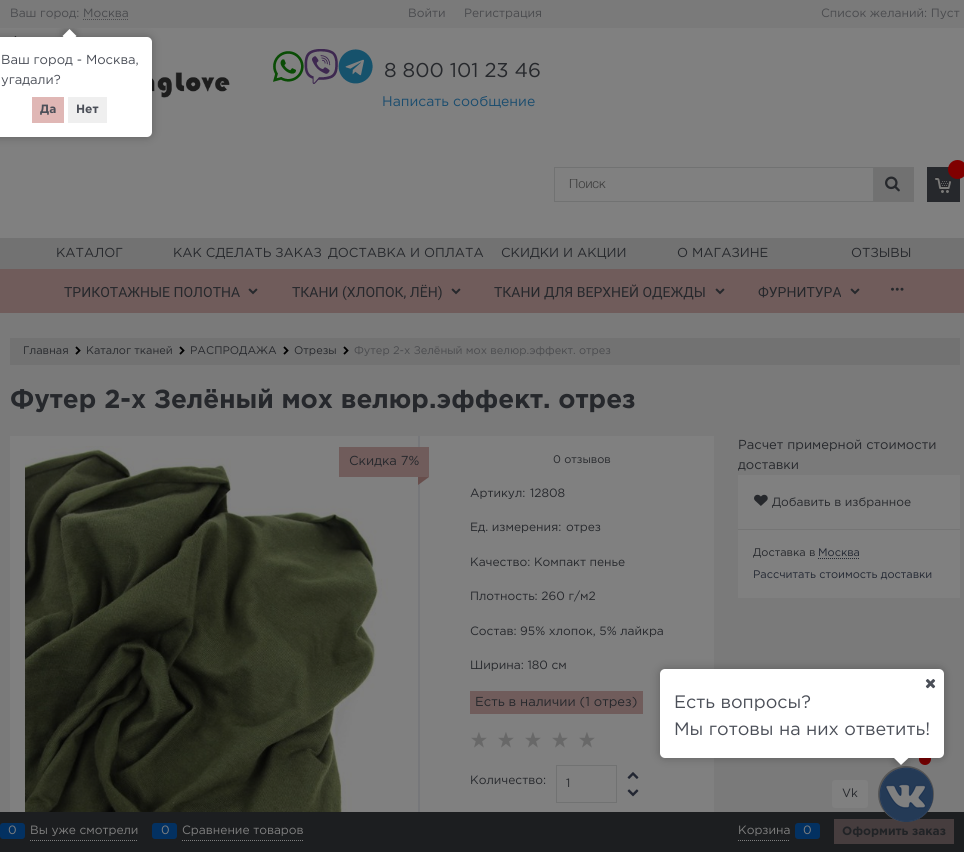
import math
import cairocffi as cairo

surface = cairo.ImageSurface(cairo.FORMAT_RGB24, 964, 852)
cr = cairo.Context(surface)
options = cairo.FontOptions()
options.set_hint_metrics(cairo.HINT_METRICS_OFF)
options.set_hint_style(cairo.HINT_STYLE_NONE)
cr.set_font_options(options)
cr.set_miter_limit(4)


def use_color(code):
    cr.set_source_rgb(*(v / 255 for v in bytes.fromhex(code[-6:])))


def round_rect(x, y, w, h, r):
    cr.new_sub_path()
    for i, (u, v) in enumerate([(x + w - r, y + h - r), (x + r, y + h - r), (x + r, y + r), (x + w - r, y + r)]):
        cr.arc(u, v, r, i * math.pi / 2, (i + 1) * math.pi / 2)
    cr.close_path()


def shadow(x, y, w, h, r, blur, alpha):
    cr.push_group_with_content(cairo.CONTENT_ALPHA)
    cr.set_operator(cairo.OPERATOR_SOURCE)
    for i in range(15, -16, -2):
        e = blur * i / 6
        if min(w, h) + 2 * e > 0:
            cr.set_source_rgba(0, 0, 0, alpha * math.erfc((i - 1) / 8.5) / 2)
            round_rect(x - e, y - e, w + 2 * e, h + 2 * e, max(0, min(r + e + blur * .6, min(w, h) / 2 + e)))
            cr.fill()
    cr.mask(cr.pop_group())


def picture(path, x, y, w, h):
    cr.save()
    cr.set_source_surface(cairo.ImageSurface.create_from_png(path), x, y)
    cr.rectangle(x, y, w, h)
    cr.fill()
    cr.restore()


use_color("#808080")
cr.paint()
use_color("#7a7a7a")
cr.rectangle(0, 0, 964, 28)
cr.fill()
cr.select_font_face("Gotham")
cr.set_font_size(12)
use_color("#4a4b4e")
cr.move_to(10, 17)
cr.show_text("Ваш город: Москва")
cr.new_path()
cr.move_to(83, 19.5)
cr.line_to(129, 19.5)
cr.set_line_width(1)
cr.set_dash([1, 1])
cr.stroke()
cr.move_to(408, 17)
cr.show_text("Войти")
cr.move_to(464, 17)
cr.show_text("Регистрация")
cr.move_to(821, 17)
cr.show_text("Список желаний: Пуст")
picture("img1.png", 10, 36, 220, 77)
picture("img2.png", 273, 49, 100, 35)
cr.set_font_size(20)
use_color("#26282c")
cr.move_to(384, 77)
cr.show_text("8 800 101 23 46")
cr.set_font_size(14)
use_color("#1a4c6e")
cr.move_to(382, 106)
cr.show_text("Написать сообщение")
cr.rectangle(554.5, 167.5, 319, 34)
use_color("#717272")
cr.set_dash([])
cr.stroke()
cr.save()
cr.rectangle(569, 179, 289, 12)
cr.clip()
cr.select_font_face("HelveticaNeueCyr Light")
cr.set_font_size(13)
use_color("#3b3b3b")
cr.move_to(569, 188)
cr.show_text("Поиск")
cr.restore()
use_color("#717171")
cr.rectangle(874, 167, 40, 35)
cr.fill()
picture("img3.png", 885, 176, 15, 16)
use_color("#26282c")
cr.rectangle(927, 167, 33, 35)
cr.fill()
picture("img4.png", 935, 177, 16, 16)
use_color("#800000")
cr.arc(957.5, 169.5, 9.5, 0, 2 * math.pi)
cr.fill()
use_color("#727272")
cr.rectangle(0, 238, 964, 31)
cr.fill()
cr.set_font_size(13)
use_color("#26282c")
cr.move_to(56, 257)
cr.show_text("КАТАЛОГ")
cr.move_to(173, 257)
cr.show_text("КАК СДЕЛАТЬ ЗАКАЗ")
cr.move_to(328, 257)
cr.show_text("ДОСТАВКА И ОПЛАТА")
cr.move_to(501, 257)
cr.show_text("СКИДКИ И АКЦИИ")
cr.move_to(677, 257)
cr.show_text("О МАГАЗИНЕ")
cr.move_to(851, 257)
cr.show_text("ОТЗЫВЫ")
use_color("#7a7a7a")
cr.rectangle(0, 313, 964, 499)
cr.fill()
use_color("#705c5b")
cr.rectangle(0, 269, 964, 44)
cr.fill()
cr.select_font_face("Roboto")
cr.set_font_size(14)
use_color("#26282c")
cr.move_to(64, 297)
cr.show_text("ТРИКОТАЖНЫЕ ПОЛОТНА")
picture("img5.png", 248, 288, 10, 7)
cr.move_to(292, 297)
cr.show_text("ТКАНИ (ХЛОПОК, ЛЁН)")
picture("img5.png", 451, 288, 10, 7)
cr.move_to(494, 297)
cr.show_text("ТКАНИ ДЛЯ ВЕРХНЕЙ ОДЕЖДЫ")
picture("img5.png", 715, 288, 10, 7)
cr.move_to(758, 297)
cr.show_text("ФУРНИТУРА")
picture("img5.png", 850, 288, 10, 7)
picture("img6.png", 891, 287, 13, 4)
use_color("#727272")
cr.rectangle(10, 338, 950, 27)
cr.fill()
cr.select_font_face("Gotham")
cr.set_font_size(11)
use_color("#26282c")
cr.move_to(23, 354)
cr.show_text("Главная")
picture("img7.png", 75, 346, 6, 9)
cr.move_to(86, 354)
cr.show_text("Каталог тканей")
picture("img7.png", 179, 346, 6, 9)
cr.move_to(190, 354)
cr.show_text("РАСПРОДАЖА")
picture("img7.png", 283, 346, 6, 9)
cr.move_to(294, 354)
cr.show_text("Отрезы")
picture("img7.png", 343, 346, 6, 9)
use_color("#4a4b4e")
cr.move_to(354, 354)
cr.show_text("Футер 2-х Зелёный мох велюр.эффект. отрез")
cr.select_font_face("Gotham", cairo.FONT_SLANT_NORMAL, cairo.FONT_WEIGHT_BOLD)
cr.set_font_size(26)
use_color("#26282c")
cr.move_to(10, 408)
cr.show_text("Футер 2-х Зелёный мох велюр.эффект. отрез")
use_color("#808080")
cr.rectangle(10, 436, 704, 376)
cr.fill()
use_color("#76777a")
cr.rectangle(418, 436, 2, 376)
cr.fill()
picture("img8.png", 25, 446, 363, 366)
use_color("#705c5b")
cr.rectangle(339, 447, 90, 30)
cr.fill()
cr.select_font_face("Gotham")
cr.set_font_size(13)
use_color("#26282c")
cr.move_to(349, 465)
cr.show_text("Скидка 7%")
use_color("#684e4c")
cr.new_path()
cr.move_to(418, 477)
cr.line_to(429, 477)
cr.line_to(418, 485)
cr.close_path()
cr.fill()
cr.set_font_size(11)
use_color("#26282c")
cr.move_to(553, 463)
cr.show_text("0 отзывов")
cr.set_font_size(12)
cr.move_to(470, 497)
cr.show_text("Артикул:")
cr.move_to(530, 497)
cr.show_text("12808")
cr.move_to(470, 531)
cr.show_text("Ед. измерения:")
cr.move_to(566, 531)
cr.show_text("отрез")
cr.move_to(470, 566)
cr.show_text("Качество: Компакт пенье")
cr.move_to(470, 600)
cr.show_text("Плотность: 260 г/м2")
cr.move_to(470, 635)
cr.show_text("Состав: 95% хлопок, 5% лайкра")
cr.move_to(470, 669)
cr.show_text("Ширина: 180 см")
use_color("#705c5b")
cr.rectangle(470, 691, 173, 23)
cr.fill()
cr.set_font_size(13)
use_color("#26282c")
cr.move_to(475, 706)
cr.show_text("Есть в наличии (1 отрез)")
picture("img9.png", 471, 732, 16, 16)
picture("img9.png", 498, 732, 16, 16)
picture("img9.png", 525, 732, 16, 16)
picture("img9.png", 552, 732, 16, 16)
picture("img9.png", 579, 732, 16, 16)
cr.set_font_size(12)
cr.move_to(470, 784)
cr.show_text("Количество:")
cr.rectangle(556.5, 765.5, 60, 37)
use_color("#717272")
cr.stroke()
use_color("#26282c")
cr.move_to(566, 787)
cr.show_text("1")
picture("img10.png", 627, 772, 12, 7)
picture("img11.png", 627, 789, 12, 8)
cr.set_font_size(13)
cr.move_to(738, 449)
cr.show_text("Расчет примерной стоимости")
cr.move_to(738, 469)
cr.show_text("доставки")
use_color("#808080")
cr.rectangle(738, 475, 222, 123)
cr.fill()
use_color("#757575")
cr.rectangle(738, 529, 222, 1)
cr.fill()
picture("img12.png", 754, 494, 14, 12)
cr.set_font_size(12)
use_color("#26282c")
cr.move_to(772, 506)
cr.show_text("Добавить в избранное")
cr.set_font_size(11)
cr.move_to(753, 556)
cr.show_text("Доставка в")
use_color("#222732")
cr.move_to(818, 556)
cr.show_text("Москва")
cr.new_path()
cr.move_to(818, 558.5)
cr.line_to(860, 558.5)
cr.set_dash([1, 1])
cr.stroke()
cr.move_to(753, 578)
cr.show_text("Рассчитать стоимость доставки")
use_color("#1c1e20")
cr.rectangle(0, 812, 964, 40)
cr.fill()
cr.new_path()
cr.move_to(30, 840.5)
cr.line_to(138, 840.5)
use_color("#808080")
cr.stroke()
use_color("#033161")
round_rect(0, 823, 25, 16, 3)
cr.fill()
cr.set_font_size(12)
use_color("#808080")
cr.move_to(8, 834)
cr.show_text("0")
cr.move_to(30, 834)
cr.show_text("Вы уже смотрели")
cr.new_path()
cr.move_to(182, 840.5)
cr.line_to(304, 840.5)
cr.stroke()
use_color("#033161")
round_rect(152, 823, 25, 16, 3)
cr.fill()
use_color("#808080")
cr.move_to(161, 834)
cr.show_text("0")
cr.move_to(182, 834)
cr.show_text("Сравнение товаров")
cr.new_path()
cr.move_to(738, 840.5)
cr.line_to(790, 840.5)
cr.stroke()
cr.move_to(738, 834)
cr.show_text("Корзина")
use_color("#033161")
round_rect(795, 823, 25, 16, 3)
cr.fill()
use_color("#808080")
cr.move_to(803, 834)
cr.show_text("0")
use_color("#463d3e")
cr.rectangle(834, 819, 120, 25)
cr.fill()
cr.select_font_face("Gotham", cairo.FONT_SLANT_NORMAL, cairo.FONT_WEIGHT_BOLD)
use_color("#212326")
cr.move_to(842, 835)
cr.show_text("Оформить заказ")
use_color("#000000")
shadow(-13, 37, 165, 100, 5, 4.5, 0.25)
use_color("#ffffff")
round_rect(-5, 37, 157, 100, 5)
cr.fill()
cr.save()
cr.rectangle(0, 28, 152, 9)
cr.clip()
use_color("#000000")
shadow(64, 31, 10, 10, 0, 4.5, 0.25)
cr.restore()
cr.save()
cr.rectangle(0, 28, 152, 9)
cr.clip()
cr.new_path()
cr.move_to(69.5, 29)
cr.line_to(76.5, 36)
cr.line_to(69.5, 43)
cr.line_to(62.5, 36)
cr.close_path()
cr.fill()
cr.restore()
cr.select_font_face("Gotham")
cr.set_font_size(13)
use_color("#4b4f58")
cr.move_to(1, 64)
cr.show_text("Ваш город - Москва,")
cr.move_to(1, 84)
cr.show_text("угадали?")
use_color("#e0b7b5")
cr.rectangle(32, 97, 32, 26)
cr.fill()
cr.select_font_face("Gotham", cairo.FONT_SLANT_NORMAL, cairo.FONT_WEIGHT_BOLD)
cr.set_font_size(12)
use_color("#4b4f58")
cr.move_to(40, 113)
cr.show_text("Да")
use_color("#efefef")
cr.rectangle(68, 97, 39, 26)
cr.fill()
use_color("#4b4f58")
cr.move_to(76, 113)
cr.show_text("Нет")
use_color("#720001")
cr.new_path()
cr.arc(925, 759, 6, 0, 2 * math.pi)
cr.fill()
use_color("#565656")
cr.arc(906, 794, 28, 0, 2 * math.pi)
cr.fill()
picture("img14.png", 879, 767, 54, 55)
use_color("#000000")
shadow(660, 669, 284, 89, 5, 4.5, 0.25)
use_color("#ffffff")
round_rect(660, 669, 284, 89, 5)
cr.fill()
picture("img13.png", 925, 679, 11, 10)
cr.select_font_face("Gotham")
cr.set_font_size(18)
use_color("#4b4f58")
cr.move_to(674, 708)
cr.show_text("Есть вопросы?")
cr.move_to(674, 735)
cr.show_text("Мы готовы на них ответить!")
cr.save()
cr.rectangle(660, 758, 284, 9)
cr.clip()
use_color("#000000")
shadow(896, 753, 10, 10, 0, 4.5, 0.25)
cr.restore()
cr.save()
cr.rectangle(660, 758, 284, 9)
cr.clip()
use_color("#ffffff")
cr.new_path()
cr.move_to(901, 750.5)
cr.line_to(908.5, 758)
cr.line_to(901, 765)
cr.line_to(894, 758)
cr.close_path()
cr.fill()
cr.restore()
use_color("#808080")
round_rect(832, 780, 36, 28, 3)
cr.fill()
cr.set_font_size(12)
use_color("#26282c")
cr.move_to(842, 797)
cr.show_text("Vk")
surface.write_to_png("result.png")
